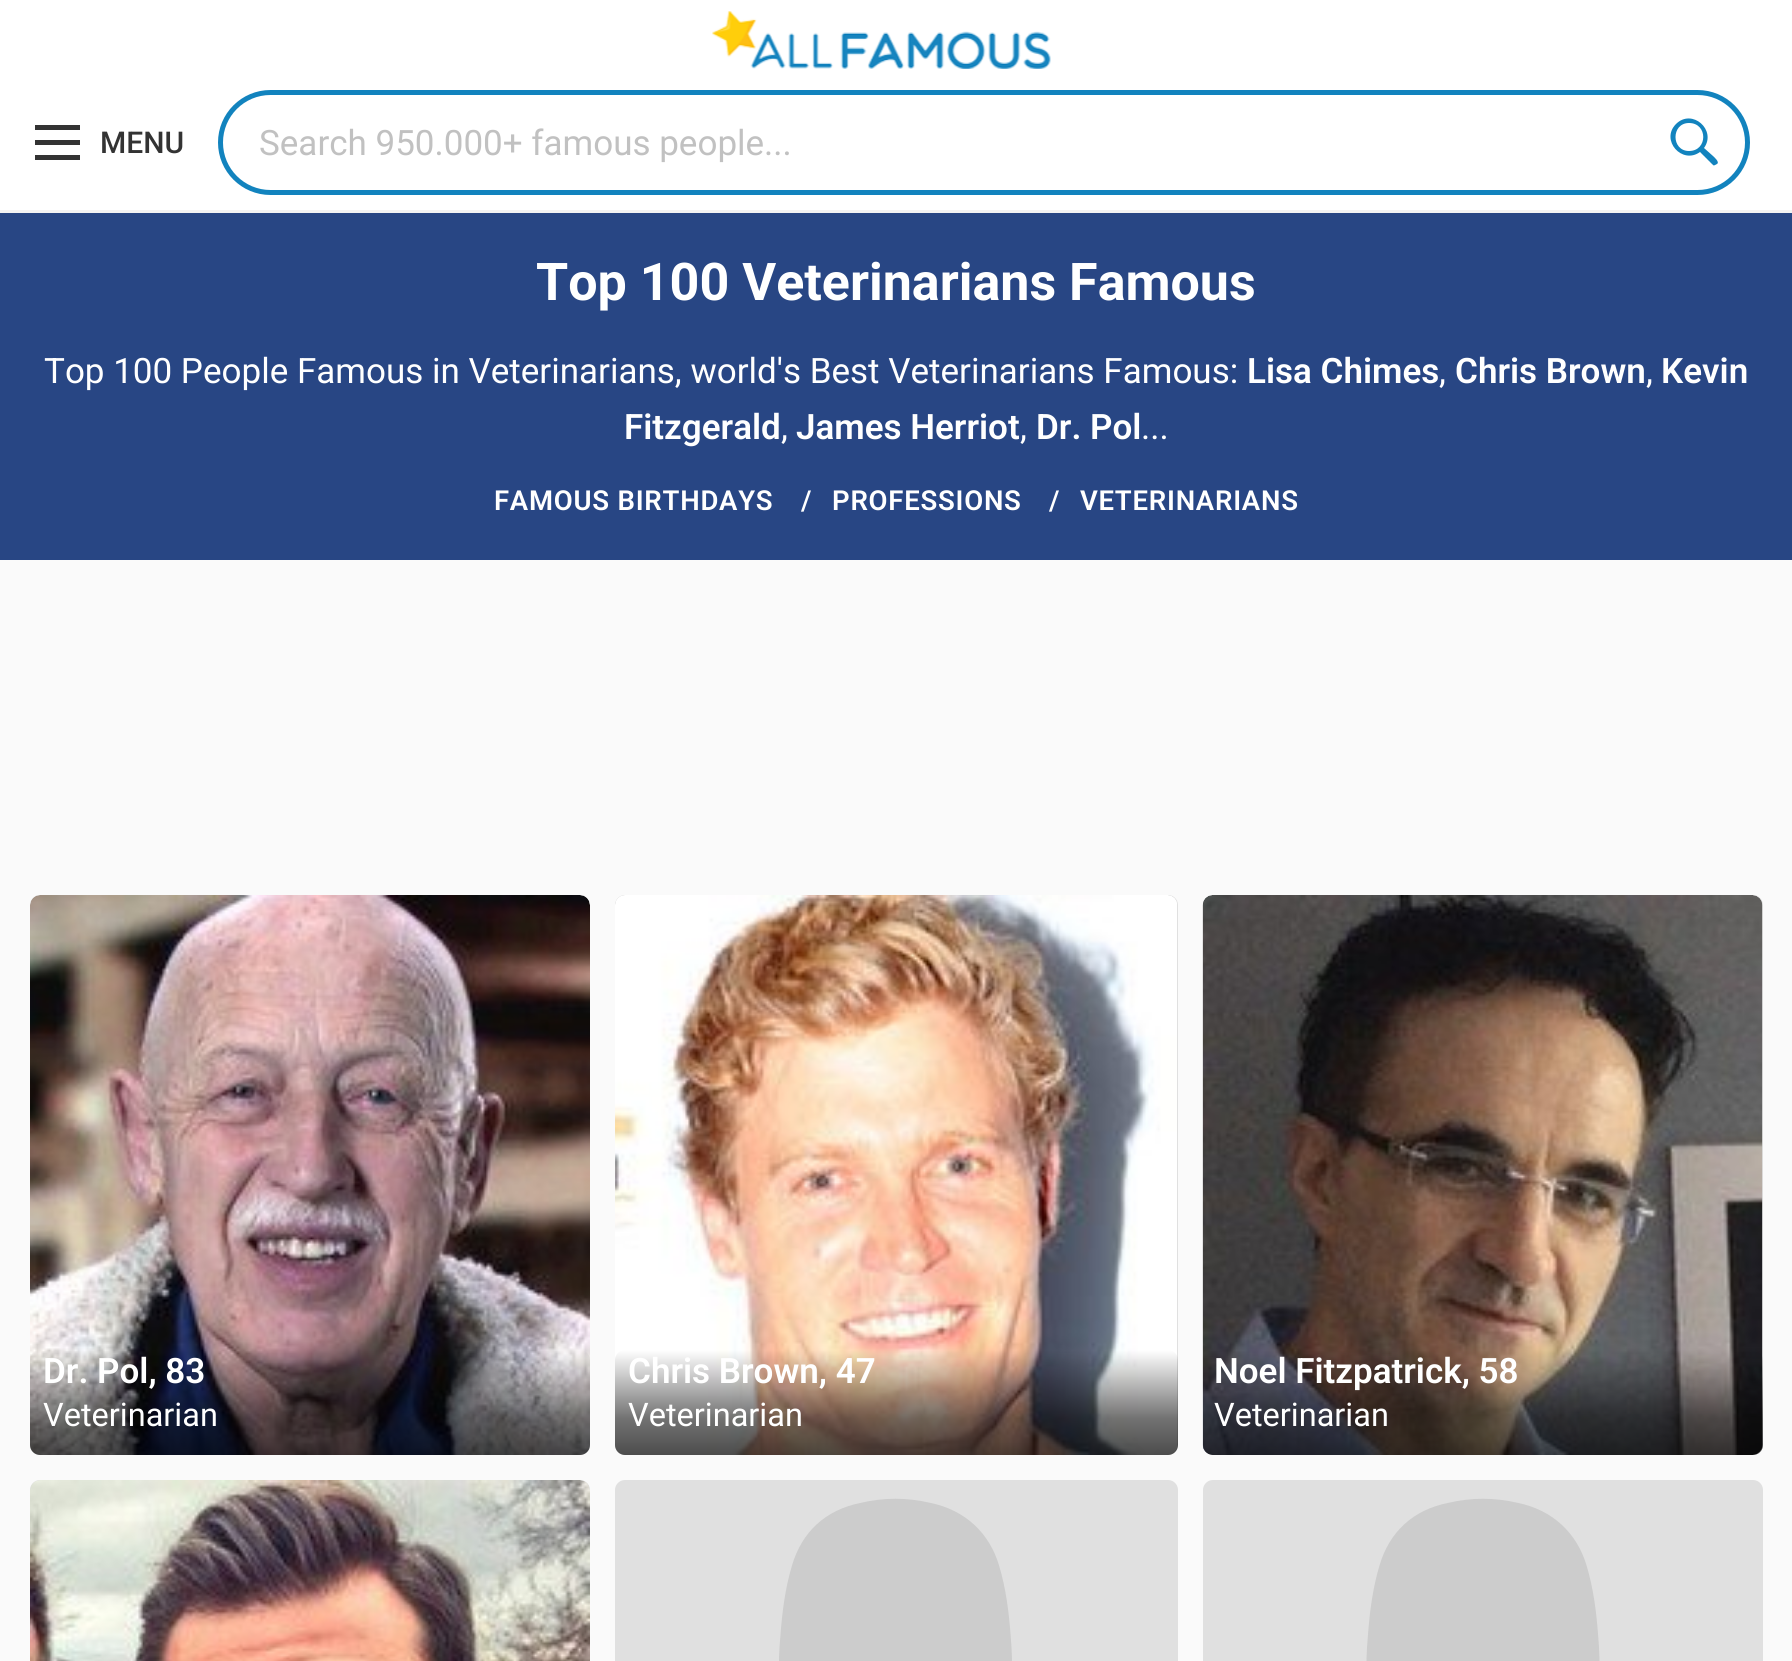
import math
import cairocffi as cairo

surface = cairo.ImageSurface(cairo.FORMAT_RGB24, 1792, 1661)
cr = cairo.Context(surface)
options = cairo.FontOptions()
options.set_hint_metrics(cairo.HINT_METRICS_OFF)
options.set_hint_style(cairo.HINT_STYLE_NONE)
cr.set_font_options(options)
cr.set_miter_limit(4)


def use_color(code):
    cr.set_source_rgb(*(v / 255 for v in bytes.fromhex(code[-6:])))


def spaced_text(x, y, s, letter, word):
    cr.move_to(x, y)
    for ch in s:
        cr.show_text(ch)
        cr.rel_move_to(letter + word * (ch == ' '), 0)


def round_rect(x, y, w, h, r):
    cr.new_sub_path()
    for i, (u, v) in enumerate([(x + w - r, y + h - r), (x + r, y + h - r), (x + r, y + r), (x + w - r, y + r)]):
        cr.arc(u, v, r, i * math.pi / 2, (i + 1) * math.pi / 2)
    cr.close_path()


def picture(path, x, y, w, h):
    cr.save()
    cr.set_source_surface(cairo.ImageSurface.create_from_png(path), x, y)
    cr.rectangle(x, y, w, h)
    cr.fill()
    cr.restore()


use_color("#fafafa")
cr.paint()
use_color("#ffffff")
cr.rectangle(0, 0, 1792, 210)
cr.fill()
use_color("#f3f3f3")
cr.rectangle(0, 210, 1792, 3)
cr.fill()
picture("img1.png", 712, 11, 339, 58)
use_color("#333333")
cr.rectangle(35, 140, 45, 5)
cr.fill()
cr.rectangle(35, 125, 45, 5)
cr.fill()
cr.rectangle(35, 155, 45, 5)
cr.fill()
cr.select_font_face("Roboto Medium")
cr.set_font_size(30)
cr.move_to(100, 153)
cr.show_text("MENU")
round_rect(220.5, 92.5, 1527, 100, 50)
use_color("#1283be")
cr.set_line_width(5)
cr.stroke()
cr.select_font_face("Roboto")
cr.set_font_size(35)
use_color("#c1c1c1")
cr.move_to(259, 155)
cr.show_text("Search 950.000+ famous people...")
use_color("#1283be")
cr.new_path()
cr.move_to(1700, 152)
cr.curve_to(1682, 165, 1660, 140, 1676, 124)
cr.curve_to(1692, 108, 1717, 130, 1704, 148)
cr.line_to(1713, 156)
cr.curve_to(1714, 157, 1720, 162, 1717, 164)
cr.curve_to(1715, 165, 1714, 166, 1713, 165)
cr.close_path()
cr.move_to(1689, 151)
cr.curve_to(1708, 151, 1708, 123, 1689, 123)
cr.curve_to(1671, 123, 1671, 151, 1689, 151)
cr.close_path()
cr.fill()
use_color("#284684")
cr.rectangle(0, 213, 1792, 347)
cr.fill()
cr.select_font_face("Roboto", cairo.FONT_SLANT_NORMAL, cairo.FONT_WEIGHT_BOLD)
cr.set_font_size(52)
use_color("#ffffff")
cr.move_to(536, 300)
cr.show_text("Top 100 Veterinarians Famous")
cr.select_font_face("Roboto")
cr.set_font_size(35)
cr.move_to(44, 383)
cr.show_text("Top 100 People Famous in Veterinarians, world's Best Veterinarians Famous:")
cr.select_font_face("Roboto SemiBold")
cr.move_to(1247, 383)
cr.show_text("Lisa Chimes")
cr.select_font_face("Roboto")
cr.move_to(1439, 383)
cr.show_text(",")
cr.select_font_face("Roboto SemiBold")
cr.move_to(1455, 383)
cr.show_text("Chris Brown")
cr.select_font_face("Roboto")
cr.move_to(1646, 383)
cr.show_text(",")
cr.select_font_face("Roboto SemiBold")
cr.move_to(1661, 383)
cr.show_text("Kevin")
cr.move_to(624, 439)
cr.show_text("Fitzgerald")
cr.select_font_face("Roboto")
cr.move_to(781, 439)
cr.show_text(",")
cr.select_font_face("Roboto SemiBold")
cr.move_to(796, 439)
cr.show_text("James Herriot")
cr.select_font_face("Roboto")
cr.move_to(1020, 439)
cr.show_text(",")
cr.select_font_face("Roboto SemiBold")
cr.move_to(1036, 439)
cr.show_text("Dr. Pol")
cr.select_font_face("Roboto")
cr.move_to(1141, 439)
cr.show_text("...")
cr.select_font_face("Roboto SemiBold")
cr.set_font_size(27.5)
spaced_text(494, 510, "FAMOUS BIRTHDAYS", 0.75, 0)
spaced_text(801, 510, "/", 0.75, 0)
spaced_text(832, 510, "PROFESSIONS", 0.75, 0)
spaced_text(1049, 510, "/", 0.75, 0)
spaced_text(1080, 510, "VETERINARIANS", 0.75, 0)
use_color("#e0e0e0")
round_rect(30, 895, 560, 560, 10)
cr.fill()
picture("img2.png", 30, 895, 560, 560)
gradient = cairo.LinearGradient(310, 1350, 310, 1455)
gradient.add_color_stop_rgba(0, 0, 0, 0, 0)
gradient.add_color_stop_rgba(0.65, 0, 0, 0, 0.55)
gradient.add_color_stop_rgba(1, 0, 0, 0, 0.7)
cr.set_source(gradient)
round_rect(30, 1350, 560, 105, 10)
cr.fill()
cr.set_font_size(35)
use_color("#ffffff")
cr.move_to(43, 1383)
cr.show_text("Dr. Pol, 83")
cr.select_font_face("Roboto")
cr.set_font_size(32.5)
cr.move_to(43, 1426)
cr.show_text("Veterinarian")
use_color("#e0e0e0")
round_rect(615, 895, 563, 560, 10)
cr.fill()
picture("img3.png", 615, 895, 562, 560)
gradient = cairo.LinearGradient(896, 1350, 896, 1455)
gradient.add_color_stop_rgba(0, 0, 0, 0, 0)
gradient.add_color_stop_rgba(0.65, 0, 0, 0, 0.55)
gradient.add_color_stop_rgba(1, 0, 0, 0, 0.7)
cr.set_source(gradient)
round_rect(615, 1350, 563, 105, 10)
cr.fill()
cr.select_font_face("Roboto SemiBold")
cr.set_font_size(35)
use_color("#ffffff")
cr.move_to(628, 1383)
cr.show_text("Chris Brown, 47")
cr.select_font_face("Roboto")
cr.set_font_size(32.5)
cr.move_to(628, 1426)
cr.show_text("Veterinarian")
use_color("#e0e0e0")
round_rect(1203, 895, 560, 560, 10)
cr.fill()
picture("img4.png", 1202, 895, 561, 560)
gradient = cairo.LinearGradient(1483, 1350, 1483, 1455)
gradient.add_color_stop_rgba(0, 0, 0, 0, 0)
gradient.add_color_stop_rgba(0.65, 0, 0, 0, 0.55)
gradient.add_color_stop_rgba(1, 0, 0, 0, 0.7)
cr.set_source(gradient)
round_rect(1203, 1350, 560, 105, 10)
cr.fill()
cr.select_font_face("Roboto SemiBold")
cr.set_font_size(35)
use_color("#ffffff")
cr.move_to(1214, 1383)
cr.show_text("Noel Fitzpatrick, 58")
cr.select_font_face("Roboto")
cr.set_font_size(32.5)
cr.move_to(1214, 1426)
cr.show_text("Veterinarian")
use_color("#e0e0e0")
round_rect(30, 1480, 560, 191, 10)
cr.fill()
picture("img5.png", 30, 1480, 560, 181)
round_rect(615, 1480, 563, 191, 10)
cr.fill()
picture("img6.png", 779, 1498, 233, 163)
round_rect(1203, 1480, 560, 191, 10)
cr.fill()
picture("img7.png", 1366, 1498, 234, 163)
surface.write_to_png("result.png")
